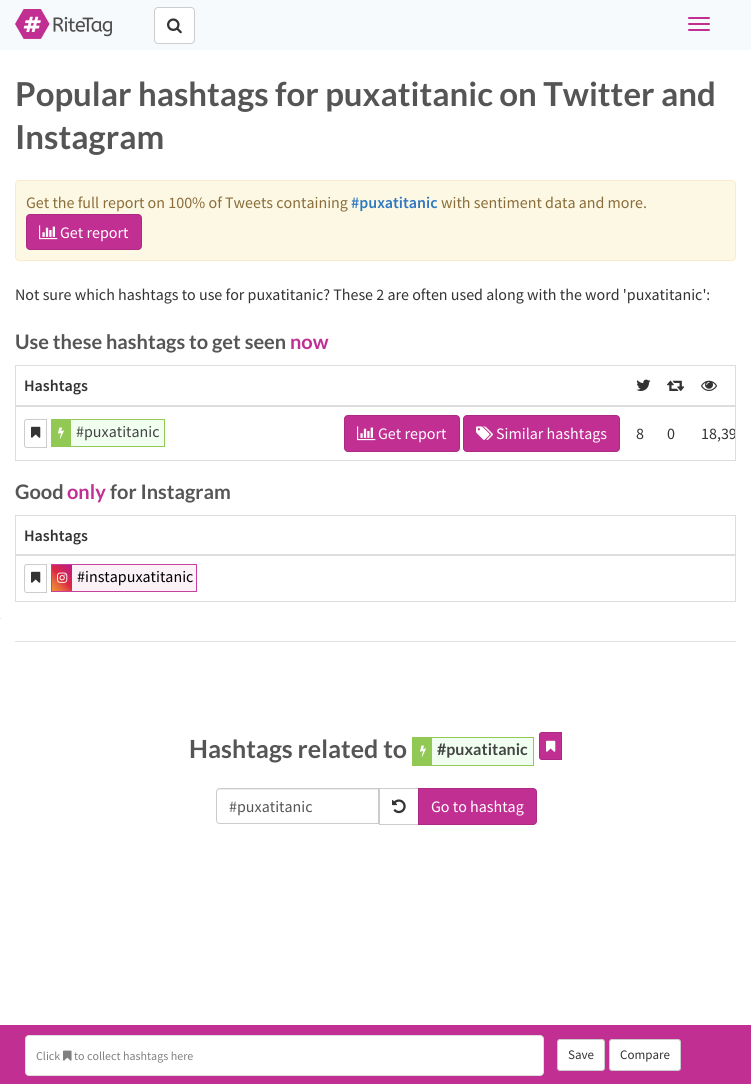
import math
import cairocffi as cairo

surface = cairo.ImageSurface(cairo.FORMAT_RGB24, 751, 1084)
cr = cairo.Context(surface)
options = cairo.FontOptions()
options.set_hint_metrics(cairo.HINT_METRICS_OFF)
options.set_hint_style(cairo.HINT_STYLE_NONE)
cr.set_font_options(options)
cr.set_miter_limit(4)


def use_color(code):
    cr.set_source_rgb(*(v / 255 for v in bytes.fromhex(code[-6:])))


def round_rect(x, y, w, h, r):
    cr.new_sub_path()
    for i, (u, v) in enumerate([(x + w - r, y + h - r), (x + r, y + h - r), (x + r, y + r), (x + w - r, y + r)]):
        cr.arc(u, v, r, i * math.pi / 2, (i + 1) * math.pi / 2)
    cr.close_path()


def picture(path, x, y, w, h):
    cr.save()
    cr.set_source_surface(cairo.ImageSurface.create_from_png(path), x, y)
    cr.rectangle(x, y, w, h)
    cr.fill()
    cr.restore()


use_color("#ffffff")
cr.paint()
use_color("#f7fafc")
cr.rectangle(0, 0, 751, 50)
cr.fill()
picture("img1.png", 15, 9, 97, 30)
use_color("#ffffff")
round_rect(154.5, 7.5, 40, 36, 3.5)
cr.fill_preserve()
use_color("#cccccc")
cr.set_line_width(1)
cr.stroke()
picture("img2.png", 167, 18, 15, 16)
use_color("#c12f93")
round_rect(688, 17, 22, 2, 1)
cr.fill()
round_rect(688, 23, 22, 2, 1)
cr.fill()
round_rect(688, 29, 22, 2, 1)
cr.fill()
cr.select_font_face("Lato", cairo.FONT_SLANT_NORMAL, cairo.FONT_WEIGHT_BOLD)
cr.set_font_size(33)
use_color("#555555")
cr.move_to(15, 106)
cr.show_text("Popular hashtags for puxatitanic on Twitter and")
cr.move_to(15, 149)
cr.show_text("Instagram")
use_color("#fcf8e3")
round_rect(15.5, 180.5, 720, 80, 3.5)
cr.fill_preserve()
use_color("#faebcc")
cr.stroke()
cr.select_font_face("Source Sans Pro")
cr.set_font_size(16)
use_color("#8a6d3b")
cr.move_to(26, 208)
cr.show_text("Get the full report on 100% of Tweets containing")
cr.select_font_face("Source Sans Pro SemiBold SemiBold")
use_color("#2f78c1")
cr.move_to(351, 208)
cr.show_text("#puxatitanic")
cr.select_font_face("Source Sans Pro")
use_color("#8a6d3b")
cr.move_to(441, 208)
cr.show_text("with sentiment data and more.")
use_color("#c12f93")
round_rect(26.5, 214.5, 115, 35, 3.5)
cr.fill_preserve()
use_color("#ac2a83")
cr.stroke()
picture("img3.png", 39, 225, 19, 15)
use_color("#ffffff")
cr.move_to(60, 238)
cr.show_text("Get report")
use_color("#333333")
cr.move_to(15, 300)
cr.show_text("Not sure which hashtags to use for puxatitanic? These 2 are often used along with the word 'puxatitanic':")
cr.select_font_face("Lato", cairo.FONT_SLANT_NORMAL, cairo.FONT_WEIGHT_BOLD)
cr.set_font_size(20)
use_color("#555555")
cr.move_to(15, 349)
cr.show_text("Use these hashtags to get seen")
use_color("#c12f93")
cr.move_to(290, 349)
cr.show_text("now")
cr.rectangle(15.5, 365.5, 720, 95)
use_color("#dddddd")
cr.stroke()
cr.select_font_face("Source Sans Pro SemiBold SemiBold")
cr.set_font_size(16)
use_color("#333333")
cr.move_to(24, 391)
cr.show_text("Hashtags")
picture("img4.png", 636, 379, 15, 12)
use_color("#dddddd")
cr.rectangle(16, 405, 719, 2)
cr.fill()
picture("img5.png", 701, 380, 16, 11)
picture("img6.png", 667, 380, 18, 11)
cr.new_path()
cr.move_to(27, 419.5)
cr.line_to(46.5, 419.5)
cr.line_to(46.5, 447.5)
cr.line_to(27, 447.5)
cr.curve_to(25.5, 447.5, 24.5, 446.5, 24.5, 445)
cr.line_to(24.5, 422)
cr.curve_to(24.5, 420.5, 25.5, 419.5, 27, 419.5)
cr.close_path()
use_color("#cccccc")
cr.stroke()
picture("img7.png", 31, 426, 10, 12)
use_color("#f0fff0")
cr.rectangle(71, 420, 93, 26)
cr.fill()
cr.rectangle(51.5, 419.5, 113, 27)
use_color("#91c954")
cr.stroke()
cr.rectangle(52, 420, 19, 26)
cr.fill()
picture("img8.png", 58, 427, 6, 12)
cr.select_font_face("Source Sans Pro")
use_color("#444444")
cr.move_to(76, 437)
cr.show_text("#puxatitanic")
use_color("#c12f93")
round_rect(344.5, 415.5, 115, 36, 3.5)
cr.fill_preserve()
use_color("#ac2a83")
cr.stroke()
picture("img3.png", 357, 426, 19, 15)
use_color("#ffffff")
cr.move_to(378, 439)
cr.show_text("Get report")
use_color("#c12f93")
round_rect(463.5, 415.5, 156, 36, 3.5)
cr.fill_preserve()
use_color("#ac2a83")
cr.stroke()
picture("img9.png", 476, 426, 17, 14)
use_color("#ffffff")
cr.move_to(496, 439)
cr.show_text("Similar hashtags")
use_color("#333333")
cr.move_to(636, 439)
cr.show_text("8")
cr.move_to(667, 439)
cr.show_text("0")
cr.save()
cr.rectangle(16, 366, 719, 94)
cr.clip()
cr.move_to(701, 439)
cr.show_text("18,39")
cr.restore()
cr.select_font_face("Lato", cairo.FONT_SLANT_NORMAL, cairo.FONT_WEIGHT_BOLD)
cr.set_font_size(20)
use_color("#555555")
cr.move_to(15, 499)
cr.show_text("Good")
use_color("#c12f93")
cr.move_to(67, 499)
cr.show_text("only")
use_color("#555555")
cr.move_to(110, 499)
cr.show_text("for Instagram")
cr.rectangle(15.5, 515.5, 720, 86)
use_color("#dddddd")
cr.stroke()
cr.rectangle(16, 554, 719, 2)
cr.fill()
cr.select_font_face("Source Sans Pro SemiBold SemiBold")
cr.set_font_size(16)
use_color("#333333")
cr.move_to(24, 541)
cr.show_text("Hashtags")
cr.new_path()
cr.move_to(27, 564.5)
cr.line_to(46.5, 564.5)
cr.line_to(46.5, 592.5)
cr.line_to(27, 592.5)
cr.curve_to(25.5, 592.5, 24.5, 591.5, 24.5, 590)
cr.line_to(24.5, 567)
cr.curve_to(24.5, 565.5, 25.5, 564.5, 27, 564.5)
cr.close_path()
use_color("#cccccc")
cr.stroke()
picture("img7.png", 31, 571, 10, 12)
use_color("#fbf2f8")
cr.rectangle(72, 565, 124, 26)
cr.fill()
cr.rectangle(51.5, 564.5, 145, 27)
use_color("#c7409d")
cr.stroke()
gradient = cairo.LinearGradient(51, 590, 74, 567)
gradient.add_color_stop_rgba(0, 0.941, 0.58, 0.2, 1)
gradient.add_color_stop_rgba(0.25, 0.902, 0.408, 0.235, 1)
gradient.add_color_stop_rgba(0.5, 0.863, 0.153, 0.263, 1)
gradient.add_color_stop_rgba(0.75, 0.8, 0.137, 0.4, 1)
gradient.add_color_stop_rgba(1, 0.737, 0.094, 0.533, 1)
cr.set_source(gradient)
cr.rectangle(52, 565, 20, 26)
cr.fill()
picture("img10.png", 57, 572, 11, 11)
cr.select_font_face("Source Sans Pro")
use_color("#000000")
cr.move_to(77, 582)
cr.show_text("#instapuxatitanic")
use_color("#e4e4e4")
cr.rectangle(0, 618, 1, 1)
cr.fill()
use_color("#e0e0e0")
cr.rectangle(15, 641, 721, 1)
cr.fill()
cr.select_font_face("Lato", cairo.FONT_SLANT_NORMAL, cairo.FONT_WEIGHT_BOLD)
cr.set_font_size(25)
use_color("#555555")
cr.move_to(189, 758)
cr.show_text("Hashtags related to")
use_color("#f0fff0")
cr.rectangle(432, 738, 101, 27)
cr.fill()
cr.rectangle(412.5, 737.5, 121, 28)
use_color("#91c954")
cr.stroke()
cr.rectangle(413, 738, 19, 27)
cr.fill()
picture("img8.png", 420, 745, 6, 12)
cr.set_font_size(16)
use_color("#444444")
cr.move_to(437, 755)
cr.show_text("#puxatitanic")
use_color("#c12f93")
cr.new_path()
cr.move_to(542, 732.5)
cr.line_to(561.5, 732.5)
cr.line_to(561.5, 759.5)
cr.line_to(542, 759.5)
cr.curve_to(540.5, 759.5, 539.5, 758.5, 539.5, 757)
cr.line_to(539.5, 735)
cr.curve_to(539.5, 733.5, 540.5, 732.5, 542, 732.5)
cr.close_path()
cr.fill_preserve()
use_color("#ac2a83")
cr.stroke()
picture("img11.png", 546, 740, 10, 12)
use_color("#ececec")
cr.new_path()
cr.move_to(220, 790)
cr.line_to(378, 790)
cr.line_to(378, 789)
cr.line_to(220, 789)
cr.curve_to(218, 789, 217, 791, 217, 793)
cr.curve_to(217, 791, 218, 790, 220, 790)
cr.close_path()
cr.fill()
cr.new_path()
cr.move_to(220, 788.5)
cr.line_to(378.5, 788.5)
cr.line_to(378.5, 823.5)
cr.line_to(220, 823.5)
cr.curve_to(218, 823.5, 216.5, 822, 216.5, 820)
cr.line_to(216.5, 792)
cr.curve_to(216.5, 790, 218, 788.5, 220, 788.5)
cr.close_path()
use_color("#cccccc")
cr.stroke()
cr.select_font_face("Source Sans Pro")
use_color("#555555")
cr.move_to(229, 812)
cr.show_text("#puxatitanic")
cr.rectangle(379.5, 788.5, 39, 36)
use_color("#cccccc")
cr.stroke()
picture("img12.png", 392, 799, 14, 15)
use_color("#c12f93")
cr.new_path()
cr.move_to(418.5, 788.5)
cr.line_to(533, 788.5)
cr.curve_to(535, 788.5, 536.5, 790, 536.5, 792)
cr.line_to(536.5, 821)
cr.curve_to(536.5, 823, 535, 824.5, 533, 824.5)
cr.line_to(418.5, 824.5)
cr.close_path()
cr.fill_preserve()
use_color("#ac2a83")
cr.stroke()
use_color("#ffffff")
cr.move_to(431, 812)
cr.show_text("Go to hashtag")
use_color("#c12f93")
cr.rectangle(0, 1025, 751, 59)
cr.fill()
use_color("#ffffff")
round_rect(25.5, 1035.5, 518, 40, 3.5)
cr.fill_preserve()
use_color("#dfdfdf")
cr.stroke()
cr.set_font_size(12)
use_color("#808080")
cr.move_to(36, 1060)
cr.show_text("Click")
picture("img13.png", 63, 1050, 9, 11)
cr.move_to(74, 1060)
cr.show_text("to collect hashtags here")
use_color("#ffffff")
round_rect(557.5, 1039.5, 47, 31, 2.5)
cr.fill_preserve()
use_color("#cccccc")
cr.stroke()
cr.set_font_size(13)
use_color("#333333")
cr.move_to(568, 1059)
cr.show_text("Save")
use_color("#ffffff")
round_rect(609.5, 1039.5, 71, 31, 2.5)
cr.fill_preserve()
use_color("#cccccc")
cr.stroke()
use_color("#333333")
cr.move_to(620, 1059)
cr.show_text("Compare")
surface.write_to_png("result.png")
